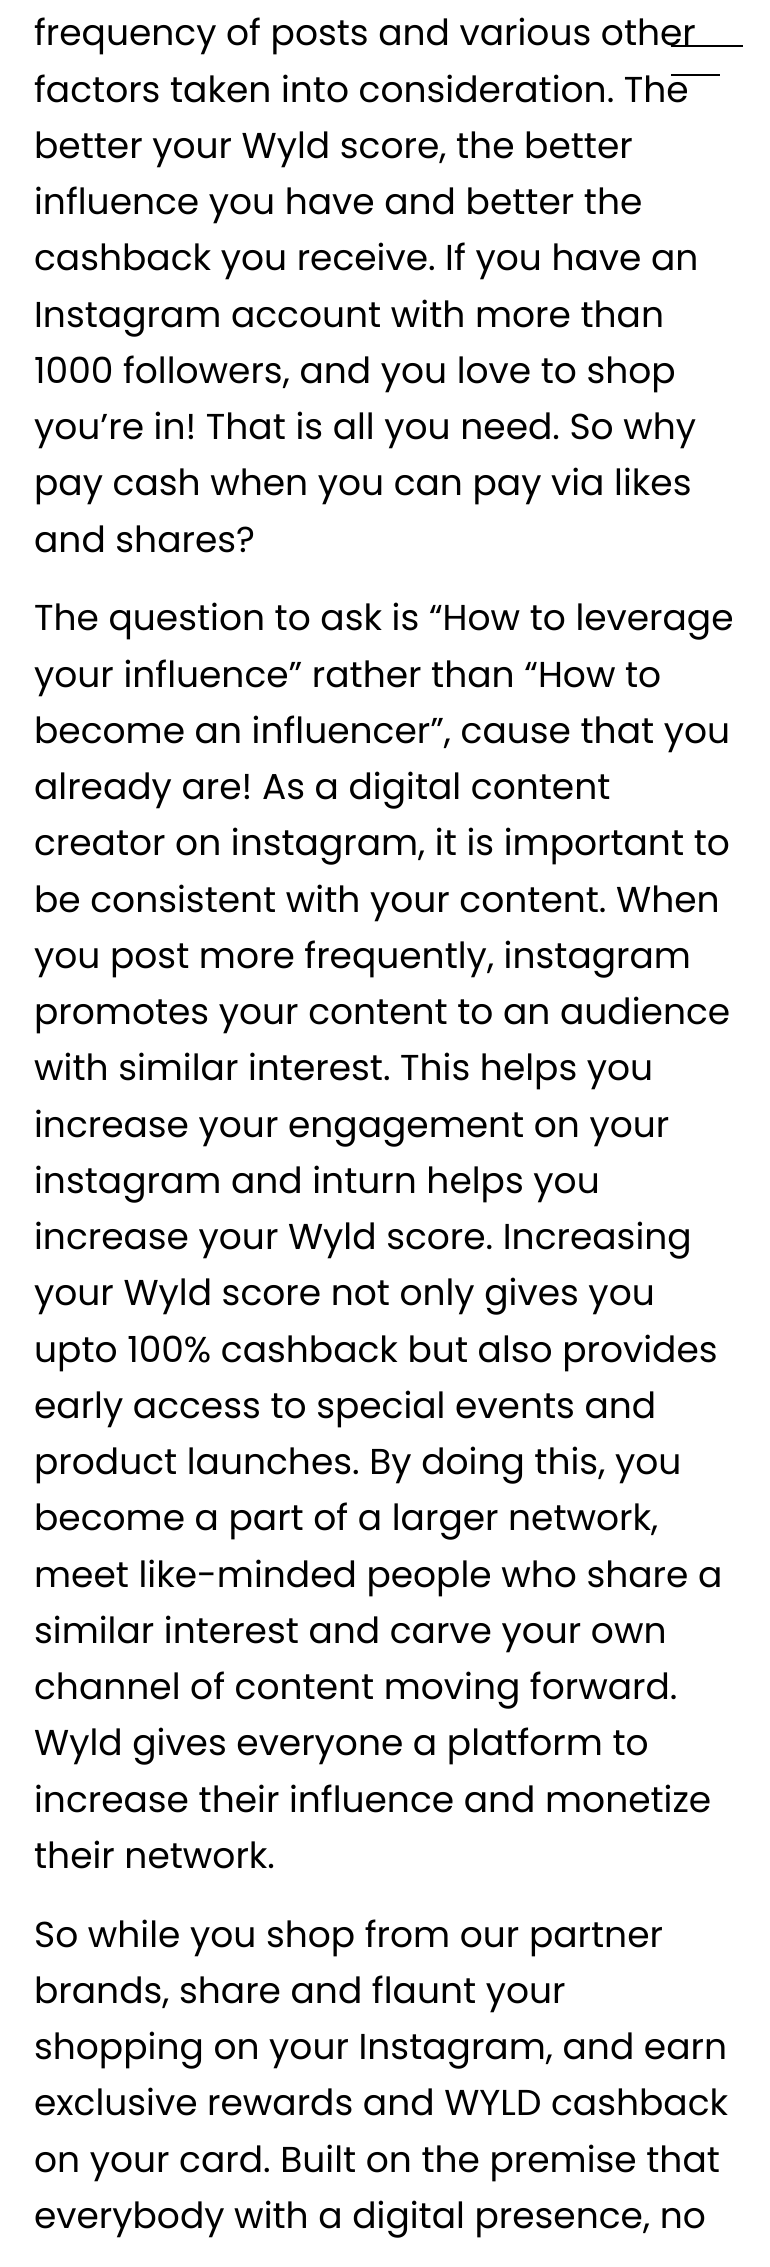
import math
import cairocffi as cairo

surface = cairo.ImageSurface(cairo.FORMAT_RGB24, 770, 2267)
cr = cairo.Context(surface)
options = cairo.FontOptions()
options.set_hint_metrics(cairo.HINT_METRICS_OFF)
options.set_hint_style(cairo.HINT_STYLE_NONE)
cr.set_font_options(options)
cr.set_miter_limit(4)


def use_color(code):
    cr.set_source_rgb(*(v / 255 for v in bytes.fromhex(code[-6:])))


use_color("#ffffff")
cr.paint()
cr.select_font_face("Poppins")
cr.set_font_size(36)
use_color("#000000")
cr.move_to(34, 45)
cr.show_text("frequency of posts and various other")
cr.move_to(34, 102)
cr.show_text("factors taken into consideration. The")
cr.move_to(34, 158)
cr.show_text("better your Wyld score, the better")
cr.move_to(34, 214)
cr.show_text("influence you have and better the")
cr.move_to(34, 270)
cr.show_text("cashback you receive. If you have an")
cr.move_to(34, 327)
cr.show_text("Instagram account with more than")
cr.move_to(34, 383)
cr.show_text("1000 followers, and you love to shop")
cr.move_to(34, 439)
cr.show_text("you’re in! That is all you need. So why")
cr.move_to(34, 495)
cr.show_text("pay cash when you can pay via likes")
cr.move_to(34, 552)
cr.show_text("and shares?")
cr.move_to(34, 630)
cr.show_text("The question to ask is “How to leverage")
cr.move_to(34, 687)
cr.show_text("your influence” rather than “How to")
cr.move_to(34, 743)
cr.show_text("become an influencer”, cause that you")
cr.move_to(34, 799)
cr.show_text("already are! As a digital content")
cr.move_to(34, 855)
cr.show_text("creator on instagram, it is important to")
cr.move_to(34, 912)
cr.show_text("be consistent with your content. When")
cr.move_to(34, 968)
cr.show_text("you post more frequently, instagram")
cr.move_to(34, 1024)
cr.show_text("promotes your content to an audience")
cr.move_to(34, 1080)
cr.show_text("with similar interest. This helps you")
cr.move_to(34, 1137)
cr.show_text("increase your engagement on your")
cr.move_to(34, 1193)
cr.show_text("instagram and inturn helps you")
cr.move_to(34, 1249)
cr.show_text("increase your Wyld score. Increasing")
cr.move_to(34, 1305)
cr.show_text("your Wyld score not only gives you")
cr.move_to(34, 1362)
cr.show_text("upto 100% cashback but also provides")
cr.move_to(34, 1418)
cr.show_text("early access to special events and")
cr.move_to(34, 1474)
cr.show_text("product launches. By doing this, you")
cr.move_to(34, 1530)
cr.show_text("become a part of a larger network,")
cr.move_to(34, 1587)
cr.show_text("meet like-minded people who share a")
cr.move_to(34, 1643)
cr.show_text("similar interest and carve your own")
cr.move_to(34, 1699)
cr.show_text("channel of content moving forward.")
cr.move_to(34, 1755)
cr.show_text("Wyld gives everyone a platform to")
cr.move_to(34, 1812)
cr.show_text("increase their influence and monetize")
cr.move_to(34, 1868)
cr.show_text("their network.")
cr.move_to(34, 1947)
cr.show_text("So while you shop from our partner")
cr.move_to(34, 2003)
cr.show_text("brands, share and flaunt your")
cr.move_to(34, 2059)
cr.show_text("shopping on your Instagram, and earn")
cr.move_to(34, 2115)
cr.show_text("exclusive rewards and WYLD cashback")
cr.move_to(34, 2172)
cr.show_text("on your card. Built on the premise that")
cr.move_to(34, 2228)
cr.show_text("everybody with a digital presence, no")
cr.rectangle(671, 45, 72, 2)
cr.fill()
cr.rectangle(671, 74, 49, 2)
cr.fill()
surface.write_to_png("result.png")
